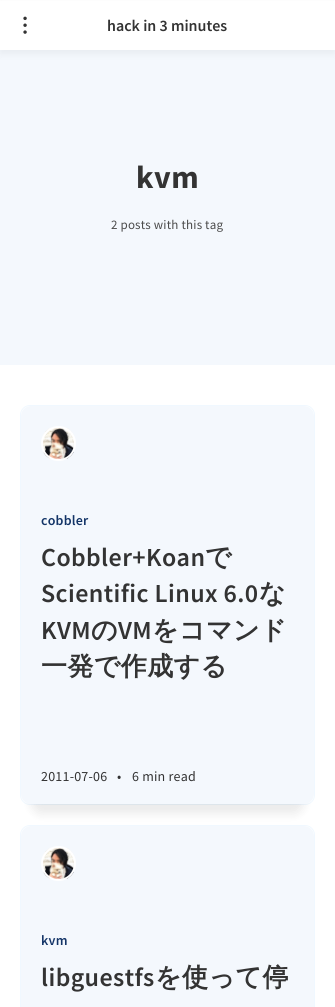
import math
import cairocffi as cairo

surface = cairo.ImageSurface(cairo.FORMAT_RGB24, 335, 1007)
cr = cairo.Context(surface)
options = cairo.FontOptions()
options.set_hint_metrics(cairo.HINT_METRICS_OFF)
options.set_hint_style(cairo.HINT_STYLE_NONE)
cr.set_font_options(options)
cr.set_miter_limit(4)


def use_color(code):
    cr.set_source_rgb(*(v / 255 for v in bytes.fromhex(code[-6:])))


def spaced_text(x, y, s, letter, word):
    cr.move_to(x, y)
    for ch in s:
        cr.show_text(ch)
        cr.rel_move_to(letter + word * (ch == ' '), 0)


def round_rect(x, y, w, h, r):
    cr.new_sub_path()
    for i, (u, v) in enumerate([(x + w - r, y + h - r), (x + r, y + h - r), (x + r, y + r), (x + w - r, y + r)]):
        cr.arc(u, v, r, i * math.pi / 2, (i + 1) * math.pi / 2)
    cr.close_path()


def shadow(x, y, w, h, r, blur, alpha):
    cr.push_group_with_content(cairo.CONTENT_ALPHA)
    cr.set_operator(cairo.OPERATOR_SOURCE)
    for i in range(15, -16, -2):
        e = blur * i / 6
        if min(w, h) + 2 * e > 0:
            cr.set_source_rgba(0, 0, 0, alpha * math.erfc((i - 1) / 8.5) / 2)
            round_rect(x - e, y - e, w + 2 * e, h + 2 * e, max(0, min(r + e + blur * .6, min(w, h) / 2 + e)))
            cr.fill()
    cr.mask(cr.pop_group())


def picture(path, x, y, w, h):
    cr.save()
    cr.set_source_surface(cairo.ImageSurface.create_from_png(path), x, y)
    cr.rectangle(x, y, w, h)
    cr.fill()
    cr.restore()


use_color("#ffffff")
cr.paint()
use_color("#f4f8fd")
cr.rectangle(0, 50, 335, 315)
cr.fill()
use_color("#000000")
shadow(0, 4, 335, 50, 0, 4, 0.05)
use_color("#ffffff")
cr.rectangle(0, 1, 335, 49)
cr.fill()
picture("img1.png", 23, 16, 4, 18)
cr.select_font_face("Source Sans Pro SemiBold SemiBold")
cr.set_font_size(16)
use_color("#333333")
cr.move_to(107, 31)
cr.show_text("hack in 3 minutes")
cr.select_font_face("Source Sans Pro", cairo.FONT_SLANT_NORMAL, cairo.FONT_WEIGHT_BOLD)
cr.set_font_size(32)
spaced_text(136, 188, "kvm", 0.5, 0)
cr.select_font_face("Source Sans Pro")
cr.set_font_size(13)
use_color("#4a4a4a")
spaced_text(111, 229, "2 posts with this tag", 0.2, 0)
round_rect(20.5, 405.5, 294, 399, 9.5)
use_color("#f0f8ff")
cr.set_line_width(1)
cr.stroke()
use_color("#000000")
shadow(31, 426, 273, 388, 10, 5, 0.08)
use_color("#f4f8fd")
cr.new_path()
cr.move_to(31, 406)
cr.line_to(304, 406)
cr.curve_to(309.5, 406, 314, 410.5, 314, 416)
cr.line_to(314, 491)
cr.line_to(21, 491)
cr.line_to(21, 416)
cr.curve_to(21, 410.5, 25.5, 406, 31, 406)
cr.close_path()
cr.fill()
picture("img2.png", 43, 428, 31, 31)
cr.arc(58.5, 443.5, 16.5, 0, 2 * math.pi)
use_color("#ffffff")
cr.set_line_width(2)
cr.stroke()
use_color("#f4f8fd")
cr.new_path()
cr.move_to(21, 491)
cr.line_to(314, 491)
cr.line_to(314, 794)
cr.curve_to(314, 799.5, 309.5, 804, 304, 804)
cr.line_to(31, 804)
cr.curve_to(25.5, 804, 21, 799.5, 21, 794)
cr.close_path()
cr.fill()
cr.select_font_face("Source Sans Pro SemiBold SemiBold")
cr.set_font_size(14)
use_color("#133467")
spaced_text(41, 525, "cobbler", 0.2, 0)
cr.set_font_size(26)
use_color("#333333")
spaced_text(41, 566, "Cobbler+Koan", 0.4, 0)
cr.select_font_face("WenQuanYi Zen Hei", cairo.FONT_SLANT_NORMAL, cairo.FONT_WEIGHT_BOLD)
spaced_text(205, 566, "で", 0.4, 0)
cr.select_font_face("Source Sans Pro SemiBold SemiBold")
spaced_text(41, 602, "Scientific Linux 6.0", 0.4, 0)
cr.select_font_face("WenQuanYi Zen Hei", cairo.FONT_SLANT_NORMAL, cairo.FONT_WEIGHT_BOLD)
spaced_text(259, 602, "な", 0.4, 0)
cr.select_font_face("Source Sans Pro SemiBold SemiBold")
spaced_text(41, 639, "KVM", 0.4, 0)
cr.select_font_face("WenQuanYi Zen Hei", cairo.FONT_SLANT_NORMAL, cairo.FONT_WEIGHT_BOLD)
spaced_text(91, 639, "の", 0.4, 0)
cr.select_font_face("Source Sans Pro SemiBold SemiBold")
spaced_text(118, 639, "VM", 0.4, 0)
cr.select_font_face("WenQuanYi Zen Hei", cairo.FONT_SLANT_NORMAL, cairo.FONT_WEIGHT_BOLD)
spaced_text(152, 639, "をコマンド", 0.4, 0)
spaced_text(41, 675, "一発で作成する", 0.4, 0)
cr.select_font_face("Source Sans Pro")
cr.set_font_size(14)
spaced_text(41, 781, "2011-07-06", 0.2, 0)
spaced_text(117, 781, "•", 0.2, 0)
spaced_text(132, 781, "6 min read", 0.2, 0)
round_rect(20.5, 825.5, 294, 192, 9.5)
use_color("#f0f8ff")
cr.set_line_width(1)
cr.stroke()
use_color("#f4f8fd")
cr.new_path()
cr.move_to(31, 826)
cr.line_to(304, 826)
cr.curve_to(309.5, 826, 314, 830.5, 314, 836)
cr.line_to(314, 911)
cr.line_to(21, 911)
cr.line_to(21, 836)
cr.curve_to(21, 830.5, 25.5, 826, 31, 826)
cr.close_path()
cr.fill()
picture("img2.png", 43, 848, 31, 31)
cr.arc(58.5, 863.5, 16.5, 0, 2 * math.pi)
use_color("#ffffff")
cr.set_line_width(2)
cr.stroke()
use_color("#f4f8fd")
cr.rectangle(21, 911, 293, 96)
cr.fill()
cr.select_font_face("Source Sans Pro SemiBold SemiBold")
use_color("#133467")
spaced_text(41, 945, "kvm", 0.2, 0)
cr.set_font_size(26)
use_color("#333333")
spaced_text(41, 986, "libguestfs", 0.4, 0)
cr.select_font_face("WenQuanYi Zen Hei", cairo.FONT_SLANT_NORMAL, cairo.FONT_WEIGHT_BOLD)
spaced_text(155, 986, "を使って停", 0.4, 0)
surface.write_to_png("result.png")
